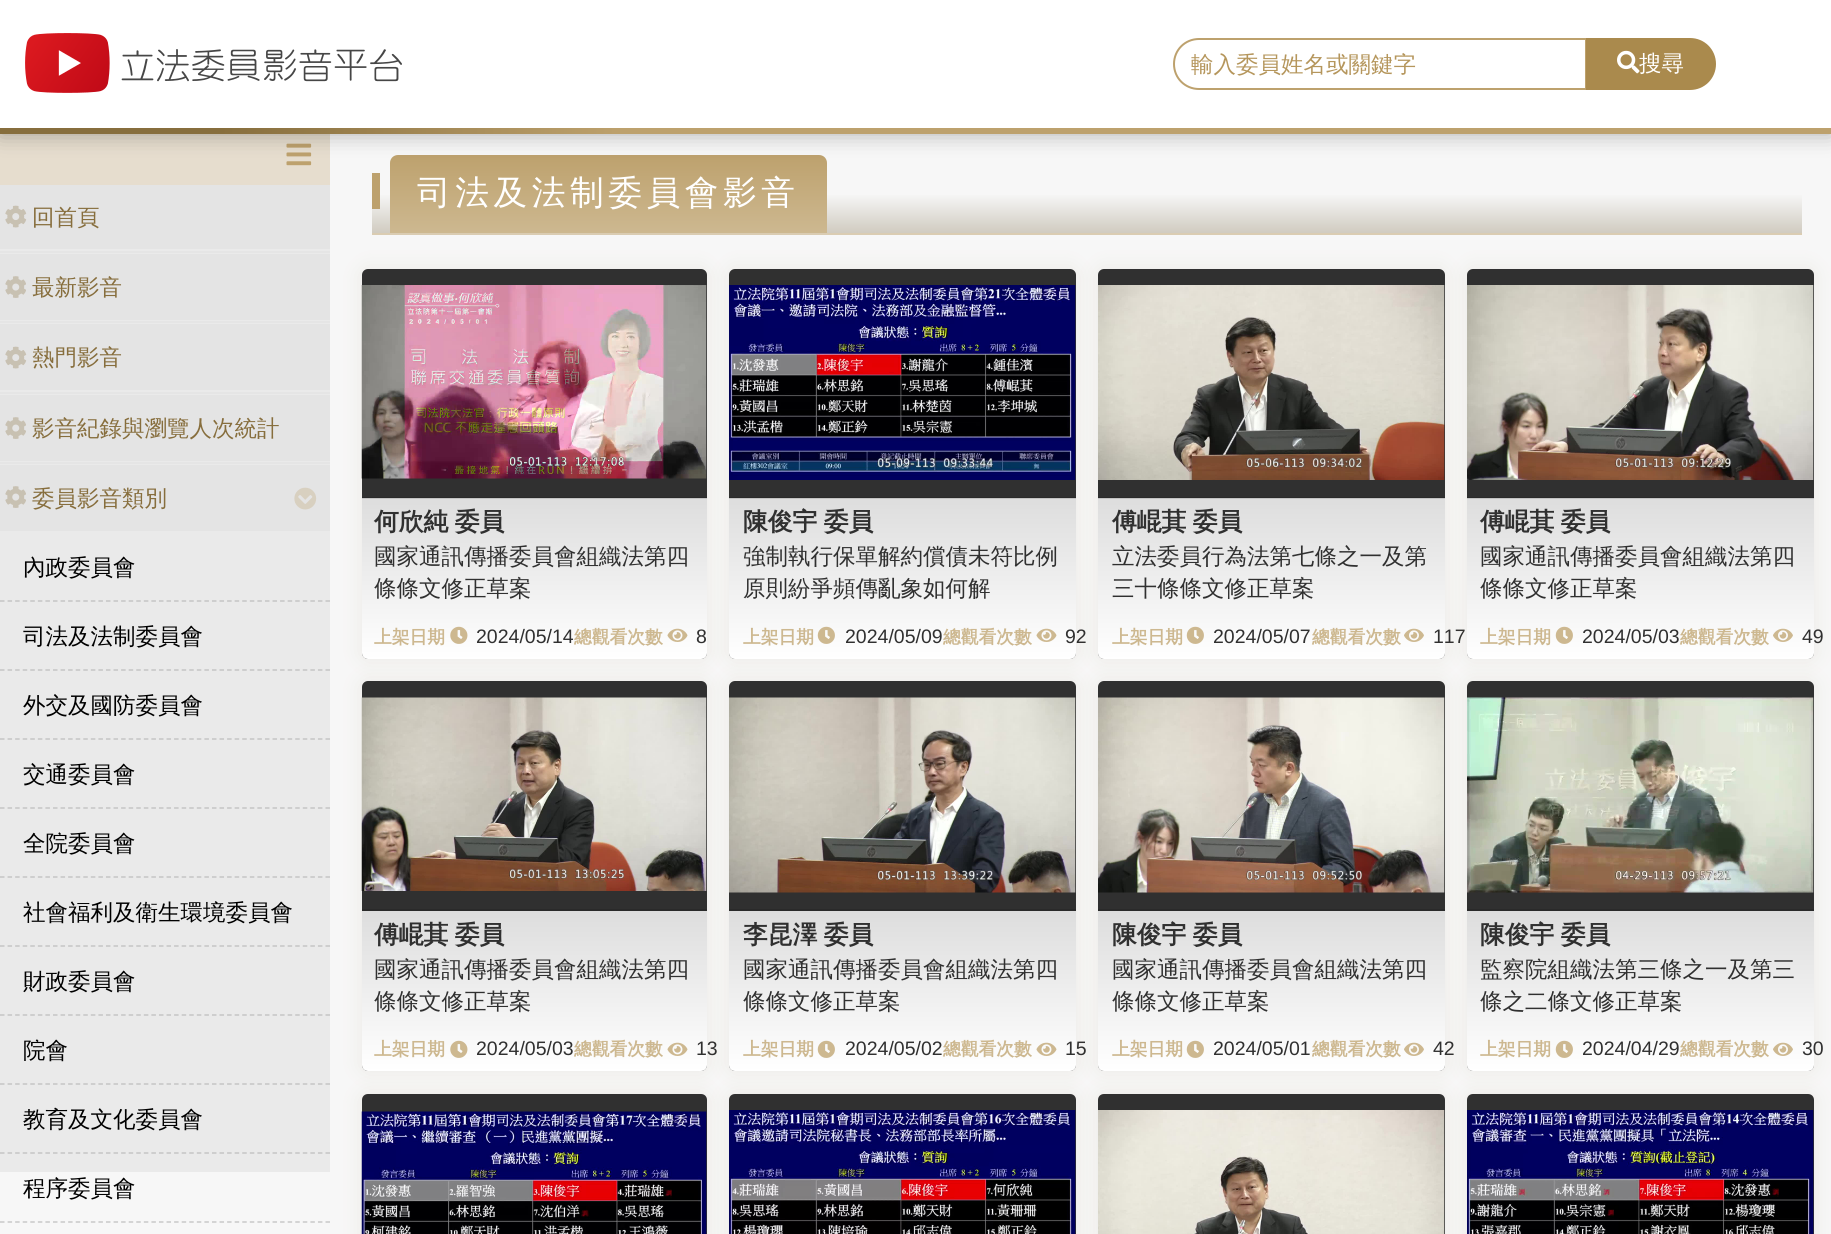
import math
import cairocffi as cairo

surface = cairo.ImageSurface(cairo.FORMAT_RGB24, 1831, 1234)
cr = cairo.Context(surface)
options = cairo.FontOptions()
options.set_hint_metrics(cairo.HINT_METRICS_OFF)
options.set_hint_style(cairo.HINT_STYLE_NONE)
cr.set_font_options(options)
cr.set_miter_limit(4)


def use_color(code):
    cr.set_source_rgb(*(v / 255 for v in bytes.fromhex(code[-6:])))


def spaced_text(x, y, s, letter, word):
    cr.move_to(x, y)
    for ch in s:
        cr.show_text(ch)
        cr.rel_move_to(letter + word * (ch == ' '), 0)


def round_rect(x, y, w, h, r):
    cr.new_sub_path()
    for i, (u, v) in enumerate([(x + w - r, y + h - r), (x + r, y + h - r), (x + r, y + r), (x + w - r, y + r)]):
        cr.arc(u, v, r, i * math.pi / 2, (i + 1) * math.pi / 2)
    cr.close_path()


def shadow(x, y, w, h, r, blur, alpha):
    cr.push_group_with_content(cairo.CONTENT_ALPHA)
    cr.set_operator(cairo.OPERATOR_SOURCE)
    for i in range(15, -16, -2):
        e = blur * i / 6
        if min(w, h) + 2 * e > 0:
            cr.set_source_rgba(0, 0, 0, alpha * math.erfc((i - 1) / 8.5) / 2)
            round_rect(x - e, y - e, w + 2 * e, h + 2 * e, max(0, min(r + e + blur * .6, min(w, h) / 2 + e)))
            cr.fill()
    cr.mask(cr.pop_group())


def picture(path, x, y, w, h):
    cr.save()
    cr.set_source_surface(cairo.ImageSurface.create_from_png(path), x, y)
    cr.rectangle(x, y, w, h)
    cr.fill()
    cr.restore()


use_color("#f7f7f7")
cr.paint()
use_color("#e6ddce")
cr.rectangle(0, 134, 330, 51)
cr.fill()
picture("img3.png", 286, 143, 26, 23)
gradient = cairo.LinearGradient(1087, 154, 1087, 233)
gradient.add_color_stop_rgba(0.5, 0.969, 0.969, 0.969, 1)
gradient.add_color_stop_rgba(1, 0.816, 0.796, 0.753, 1)
cr.set_source(gradient)
cr.rectangle(372, 195, 1430, 38)
cr.fill()
gradient = cairo.LinearGradient(608, 154, 608, 233)
gradient.add_color_stop_rgba(0, 0.741, 0.631, 0.427, 1)
gradient.add_color_stop_rgba(1, 0.804, 0.722, 0.565, 1)
cr.set_source(gradient)
cr.new_path()
cr.move_to(398, 155)
cr.line_to(819, 155)
cr.curve_to(823.5, 155, 827, 158.5, 827, 163)
cr.line_to(827, 233)
cr.line_to(390, 233)
cr.line_to(390, 163)
cr.curve_to(390, 158.5, 393.5, 155, 398, 155)
cr.close_path()
cr.fill()
use_color("#000000")
shadow(0, 0, 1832, 134, 0, 11, 0.3)
gradient = cairo.LinearGradient(0, 67, 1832, 67)
gradient.add_color_stop_rgba(0.12, 0.529, 0.431, 0.239, 1)
gradient.add_color_stop_rgba(0.34, 0.741, 0.631, 0.427, 1)
cr.set_source(gradient)
cr.rectangle(0, 128, 1831, 6)
cr.fill()
use_color("#ffffff")
cr.rectangle(0, 0, 1831, 128)
cr.fill()
picture("img1.png", 25, 33, 377, 60)
cr.new_path()
cr.move_to(1199, 39)
cr.line_to(1586, 39)
cr.line_to(1586, 89)
cr.line_to(1199, 89)
cr.curve_to(1185, 89, 1174, 78, 1174, 64)
cr.curve_to(1174, 50, 1185, 39, 1199, 39)
cr.close_path()
use_color("#bda16d")
cr.stroke()
cr.select_font_face("WenQuanYi Zen Hei Medium")
cr.set_font_size(22.5)
use_color("#b5965c")
cr.move_to(1191, 72)
cr.show_text("輸入委員姓名或關鍵字")
use_color("#aa8a4d")
cr.new_path()
cr.move_to(1586, 38)
cr.line_to(1690, 38)
cr.curve_to(1704.5, 38, 1716, 49.5, 1716, 64)
cr.curve_to(1716, 78.5, 1704.5, 90, 1690, 90)
cr.line_to(1586, 90)
cr.close_path()
cr.fill()
picture("img2.png", 1617, 50, 23, 24)
use_color("#ffffff")
cr.move_to(1639, 71)
cr.show_text("搜尋")
use_color("#eaeaea")
cr.rectangle(0, 249, 330, 923)
cr.fill()
use_color("#e5e5e5")
cr.rectangle(0, 251, 330, 2)
cr.fill()
use_color("#e4e4e4")
cr.rectangle(0, 185, 330, 64)
cr.fill()
picture("img4.png", 5, 205, 22, 23)
use_color("#876e3d")
cr.move_to(32, 225)
cr.show_text("回首頁")
use_color("#e5e5e5")
cr.rectangle(0, 321, 330, 2)
cr.fill()
use_color("#e4e4e4")
cr.rectangle(0, 254, 330, 66)
cr.fill()
picture("img5.png", 5, 276, 21, 22)
use_color("#876e3d")
cr.move_to(32, 295)
cr.show_text("最新影音")
use_color("#e5e5e5")
cr.rectangle(0, 392, 330, 2)
cr.fill()
use_color("#e4e4e4")
cr.rectangle(0, 324, 330, 66)
cr.fill()
picture("img4.png", 5, 346, 22, 23)
use_color("#876e3d")
cr.move_to(32, 365)
cr.show_text("熱門影音")
use_color("#e5e5e5")
cr.rectangle(0, 462, 330, 2)
cr.fill()
use_color("#e4e4e4")
cr.rectangle(0, 395, 330, 66)
cr.fill()
picture("img5.png", 5, 417, 21, 22)
use_color("#876e3d")
cr.move_to(32, 436)
cr.show_text("影音紀錄與瀏覽人次統計")
use_color("#e4e4e4")
cr.rectangle(0, 465, 330, 66)
cr.fill()
picture("img5.png", 5, 486, 21, 22)
use_color("#876e3d")
cr.move_to(32, 506)
cr.show_text("委員影音類別")
picture("img6.png", 294, 487, 23, 23)
cr.new_path()
cr.move_to(0, 601)
cr.line_to(330, 601)
use_color("#c4c4c4")
cr.set_line_width(1.5)
cr.set_dash([4.5, 3.07])
cr.stroke()
use_color("#000000")
cr.move_to(23, 575)
cr.show_text("內政委員會")
cr.new_path()
cr.move_to(0, 670)
cr.line_to(330, 670)
use_color("#c4c4c4")
cr.stroke()
use_color("#000000")
cr.move_to(23, 644)
cr.show_text("司法及法制委員會")
cr.new_path()
cr.move_to(0, 739)
cr.line_to(330, 739)
use_color("#c4c4c4")
cr.stroke()
use_color("#000000")
cr.move_to(23, 713)
cr.show_text("外交及國防委員會")
cr.new_path()
cr.move_to(0, 808)
cr.line_to(330, 808)
use_color("#c4c4c4")
cr.stroke()
use_color("#000000")
cr.move_to(23, 782)
cr.show_text("交通委員會")
cr.new_path()
cr.move_to(0, 877)
cr.line_to(330, 877)
use_color("#c4c4c4")
cr.stroke()
use_color("#000000")
cr.move_to(23, 851)
cr.show_text("全院委員會")
cr.new_path()
cr.move_to(0, 946)
cr.line_to(330, 946)
use_color("#c4c4c4")
cr.stroke()
use_color("#000000")
cr.move_to(23, 920)
cr.show_text("社會福利及衛生環境委員會")
cr.new_path()
cr.move_to(0, 1015)
cr.line_to(330, 1015)
use_color("#c4c4c4")
cr.stroke()
use_color("#000000")
cr.move_to(23, 989)
cr.show_text("財政委員會")
cr.new_path()
cr.move_to(0, 1084)
cr.line_to(330, 1084)
use_color("#c4c4c4")
cr.stroke()
use_color("#000000")
cr.move_to(23, 1058)
cr.show_text("院會")
cr.new_path()
cr.move_to(0, 1153)
cr.line_to(330, 1153)
use_color("#c4c4c4")
cr.stroke()
use_color("#000000")
cr.move_to(23, 1127)
cr.show_text("教育及文化委員會")
cr.new_path()
cr.move_to(0, 1222)
cr.line_to(330, 1222)
use_color("#c9c9c9")
cr.stroke()
use_color("#000000")
cr.move_to(23, 1196)
cr.show_text("程序委員會")
use_color("#daccb2")
cr.rectangle(372, 233, 1430, 2)
cr.fill()
use_color("#bda16d")
cr.rectangle(372, 173, 8, 36)
cr.fill()
cr.set_font_size(33.75)
use_color("#ffffff")
spaced_text(417, 204, "司法及法制委員會影音", 4.5, 0)
use_color("#876e3d")
shadow(362, 269, 345, 390, 6, 10.5, 0.1)
use_color("#303030")
round_rect(362, 269, 345, 390, 6)
cr.fill()
picture("img7.png", 361, 285, 346, 194)
gradient = cairo.LinearGradient(534, 498, 534, 659)
gradient.add_color_stop_rgba(0, 0.867, 0.867, 0.867, 1)
gradient.add_color_stop_rgba(1, 1, 1, 1, 1)
cr.set_source(gradient)
cr.new_path()
cr.move_to(362, 498)
cr.line_to(707, 498)
cr.line_to(707, 653)
cr.curve_to(707, 656.5, 704.5, 659, 701, 659)
cr.line_to(368, 659)
cr.curve_to(364.5, 659, 362, 656.5, 362, 653)
cr.close_path()
cr.fill()
cr.set_source_rgba(0, 0, 0, 0.12)
cr.rectangle(362, 497, 345, 2)
cr.fill()
cr.select_font_face("WenQuanYi Zen Hei", cairo.FONT_SLANT_NORMAL, cairo.FONT_WEIGHT_BOLD)
cr.set_font_size(24.75)
use_color("#303030")
spaced_text(374, 530, "何欣純 委員", 0, -1)
cr.select_font_face("WenQuanYi Zen Hei Medium")
cr.set_font_size(22.5)
cr.move_to(374, 564)
cr.show_text("國家通訊傳播委員會組織法第四")
cr.move_to(374, 596)
cr.show_text("條條文修正草案")
picture("img8.png", 450, 626, 18, 18)
cr.select_font_face("WenQuanYi Zen Hei", cairo.FONT_SLANT_NORMAL, cairo.FONT_WEIGHT_BOLD)
cr.set_font_size(17.75)
use_color("#cdb890")
cr.move_to(374, 643)
cr.show_text("上架日期")
cr.select_font_face("Liberation Sans")
cr.set_font_size(19.5)
use_color("#303030")
cr.move_to(476, 643)
cr.show_text("2024/05/14")
picture("img9.png", 667, 628, 21, 14)
cr.select_font_face("WenQuanYi Zen Hei", cairo.FONT_SLANT_NORMAL, cairo.FONT_WEIGHT_BOLD)
cr.set_font_size(17.75)
use_color("#cdb890")
cr.move_to(574, 643)
cr.show_text("總觀看次數")
cr.select_font_face("Liberation Sans")
cr.set_font_size(19.5)
use_color("#303030")
cr.move_to(696, 643)
cr.show_text("8")
use_color("#876e3d")
shadow(729, 269, 347, 390, 6, 10.5, 0.1)
use_color("#303030")
round_rect(729, 269, 347, 390, 6)
cr.fill()
picture("img10.png", 729, 285, 347, 195)
gradient = cairo.LinearGradient(902, 498, 902, 659)
gradient.add_color_stop_rgba(0, 0.867, 0.867, 0.867, 1)
gradient.add_color_stop_rgba(1, 1, 1, 1, 1)
cr.set_source(gradient)
cr.new_path()
cr.move_to(729, 498)
cr.line_to(1076, 498)
cr.line_to(1076, 653)
cr.curve_to(1076, 656.5, 1073.5, 659, 1070, 659)
cr.line_to(735, 659)
cr.curve_to(731.5, 659, 729, 656.5, 729, 653)
cr.close_path()
cr.fill()
cr.set_source_rgba(0, 0, 0, 0.12)
cr.rectangle(729, 497, 347, 2)
cr.fill()
cr.select_font_face("WenQuanYi Zen Hei", cairo.FONT_SLANT_NORMAL, cairo.FONT_WEIGHT_BOLD)
cr.set_font_size(24.75)
use_color("#303030")
spaced_text(743, 530, "陳俊宇 委員", 0, -1)
cr.select_font_face("WenQuanYi Zen Hei Medium")
cr.set_font_size(22.5)
cr.move_to(743, 564)
cr.show_text("強制執行保單解約償債未符比例")
cr.move_to(743, 596)
cr.show_text("原則紛爭頻傳亂象如何解")
picture("img11.png", 817, 626, 18, 18)
cr.select_font_face("WenQuanYi Zen Hei", cairo.FONT_SLANT_NORMAL, cairo.FONT_WEIGHT_BOLD)
cr.set_font_size(17.75)
use_color("#cdb890")
cr.move_to(743, 643)
cr.show_text("上架日期")
cr.select_font_face("Liberation Sans")
cr.set_font_size(19.5)
use_color("#303030")
cr.move_to(845, 643)
cr.show_text("2024/05/09")
picture("img9.png", 1036, 628, 21, 14)
cr.select_font_face("WenQuanYi Zen Hei", cairo.FONT_SLANT_NORMAL, cairo.FONT_WEIGHT_BOLD)
cr.set_font_size(17.75)
use_color("#cdb890")
cr.move_to(943, 643)
cr.show_text("總觀看次數")
cr.select_font_face("Liberation Sans")
cr.set_font_size(19.5)
use_color("#303030")
cr.move_to(1065, 643)
cr.show_text("92")
use_color("#876e3d")
shadow(1098, 269, 347, 390, 6, 10.5, 0.1)
use_color("#303030")
round_rect(1098, 269, 347, 390, 6)
cr.fill()
picture("img12.png", 1098, 285, 347, 195)
gradient = cairo.LinearGradient(1271, 498, 1271, 659)
gradient.add_color_stop_rgba(0, 0.867, 0.867, 0.867, 1)
gradient.add_color_stop_rgba(1, 1, 1, 1, 1)
cr.set_source(gradient)
cr.new_path()
cr.move_to(1098, 498)
cr.line_to(1445, 498)
cr.line_to(1445, 653)
cr.curve_to(1445, 656.5, 1442.5, 659, 1439, 659)
cr.line_to(1104, 659)
cr.curve_to(1100.5, 659, 1098, 656.5, 1098, 653)
cr.close_path()
cr.fill()
cr.set_source_rgba(0, 0, 0, 0.12)
cr.rectangle(1098, 497, 347, 2)
cr.fill()
cr.select_font_face("WenQuanYi Zen Hei", cairo.FONT_SLANT_NORMAL, cairo.FONT_WEIGHT_BOLD)
cr.set_font_size(24.75)
use_color("#303030")
spaced_text(1112, 530, "傅崐萁 委員", 0, -1)
cr.select_font_face("WenQuanYi Zen Hei Medium")
cr.set_font_size(22.5)
cr.move_to(1112, 564)
cr.show_text("立法委員行為法第七條之一及第")
cr.move_to(1112, 596)
cr.show_text("三十條條文修正草案")
picture("img11.png", 1186, 626, 18, 18)
cr.select_font_face("WenQuanYi Zen Hei", cairo.FONT_SLANT_NORMAL, cairo.FONT_WEIGHT_BOLD)
cr.set_font_size(17.75)
use_color("#cdb890")
cr.move_to(1112, 643)
cr.show_text("上架日期")
cr.select_font_face("Liberation Sans")
cr.set_font_size(19.5)
use_color("#303030")
cr.move_to(1213, 643)
cr.show_text("2024/05/07")
picture("img13.png", 1404, 628, 20, 14)
cr.select_font_face("WenQuanYi Zen Hei", cairo.FONT_SLANT_NORMAL, cairo.FONT_WEIGHT_BOLD)
cr.set_font_size(17.75)
use_color("#cdb890")
cr.move_to(1312, 643)
cr.show_text("總觀看次數")
cr.select_font_face("Liberation Sans")
cr.set_font_size(19.5)
use_color("#303030")
cr.move_to(1433, 643)
cr.show_text("117")
use_color("#876e3d")
shadow(1467, 269, 347, 390, 6, 10.5, 0.1)
use_color("#303030")
round_rect(1467, 269, 347, 390, 6)
cr.fill()
picture("img14.png", 1467, 285, 347, 195)
gradient = cairo.LinearGradient(1640, 498, 1640, 659)
gradient.add_color_stop_rgba(0, 0.867, 0.867, 0.867, 1)
gradient.add_color_stop_rgba(1, 1, 1, 1, 1)
cr.set_source(gradient)
cr.new_path()
cr.move_to(1467, 498)
cr.line_to(1814, 498)
cr.line_to(1814, 653)
cr.curve_to(1814, 656.5, 1811.5, 659, 1808, 659)
cr.line_to(1473, 659)
cr.curve_to(1469.5, 659, 1467, 656.5, 1467, 653)
cr.close_path()
cr.fill()
cr.set_source_rgba(0, 0, 0, 0.12)
cr.rectangle(1467, 497, 347, 2)
cr.fill()
cr.select_font_face("WenQuanYi Zen Hei", cairo.FONT_SLANT_NORMAL, cairo.FONT_WEIGHT_BOLD)
cr.set_font_size(24.75)
use_color("#303030")
spaced_text(1480, 530, "傅崐萁 委員", 0, -1)
cr.select_font_face("WenQuanYi Zen Hei Medium")
cr.set_font_size(22.5)
cr.move_to(1480, 564)
cr.show_text("國家通訊傳播委員會組織法第四")
cr.move_to(1480, 596)
cr.show_text("條條文修正草案")
picture("img11.png", 1555, 626, 18, 18)
cr.select_font_face("WenQuanYi Zen Hei", cairo.FONT_SLANT_NORMAL, cairo.FONT_WEIGHT_BOLD)
cr.set_font_size(17.75)
use_color("#cdb890")
cr.move_to(1480, 643)
cr.show_text("上架日期")
cr.select_font_face("Liberation Sans")
cr.set_font_size(19.5)
use_color("#303030")
cr.move_to(1582, 643)
cr.show_text("2024/05/03")
picture("img13.png", 1773, 628, 20, 14)
cr.select_font_face("WenQuanYi Zen Hei", cairo.FONT_SLANT_NORMAL, cairo.FONT_WEIGHT_BOLD)
cr.set_font_size(17.75)
use_color("#cdb890")
cr.move_to(1680, 643)
cr.show_text("總觀看次數")
cr.select_font_face("Liberation Sans")
cr.set_font_size(19.5)
use_color("#303030")
cr.move_to(1802, 643)
cr.show_text("49")
use_color("#876e3d")
shadow(362, 681, 345, 390, 6, 10.5, 0.1)
use_color("#303030")
round_rect(362, 681, 345, 390, 6)
cr.fill()
picture("img15.png", 361, 697, 346, 194)
use_color("#2a2a2a")
cr.rectangle(362, 909, 345, 2)
cr.fill()
gradient = cairo.LinearGradient(534, 911, 534, 1071)
gradient.add_color_stop_rgba(0, 0.867, 0.867, 0.867, 1)
gradient.add_color_stop_rgba(1, 1, 1, 1, 1)
cr.set_source(gradient)
cr.new_path()
cr.move_to(362, 911)
cr.line_to(707, 911)
cr.line_to(707, 1065)
cr.curve_to(707, 1068.5, 704.5, 1071, 701, 1071)
cr.line_to(368, 1071)
cr.curve_to(364.5, 1071, 362, 1068.5, 362, 1065)
cr.close_path()
cr.fill()
cr.select_font_face("WenQuanYi Zen Hei", cairo.FONT_SLANT_NORMAL, cairo.FONT_WEIGHT_BOLD)
cr.set_font_size(24.75)
use_color("#303030")
spaced_text(374, 943, "傅崐萁 委員", 0, -1)
cr.select_font_face("WenQuanYi Zen Hei Medium")
cr.set_font_size(22.5)
cr.move_to(374, 977)
cr.show_text("國家通訊傳播委員會組織法第四")
cr.move_to(374, 1009)
cr.show_text("條條文修正草案")
picture("img16.png", 450, 1040, 18, 18)
cr.select_font_face("WenQuanYi Zen Hei", cairo.FONT_SLANT_NORMAL, cairo.FONT_WEIGHT_BOLD)
cr.set_font_size(17.75)
use_color("#cdb890")
cr.move_to(374, 1055)
cr.show_text("上架日期")
cr.select_font_face("Liberation Sans")
cr.set_font_size(19.5)
use_color("#303030")
cr.move_to(476, 1055)
cr.show_text("2024/05/03")
picture("img17.png", 667, 1042, 21, 14)
cr.select_font_face("WenQuanYi Zen Hei", cairo.FONT_SLANT_NORMAL, cairo.FONT_WEIGHT_BOLD)
cr.set_font_size(17.75)
use_color("#cdb890")
cr.move_to(574, 1055)
cr.show_text("總觀看次數")
cr.select_font_face("Liberation Sans")
cr.set_font_size(19.5)
use_color("#303030")
cr.move_to(696, 1055)
cr.show_text("13")
use_color("#876e3d")
shadow(729, 681, 347, 390, 6, 10.5, 0.1)
use_color("#303030")
round_rect(729, 681, 347, 390, 6)
cr.fill()
picture("img18.png", 729, 697, 347, 196)
use_color("#2a2a2a")
cr.rectangle(729, 909, 347, 2)
cr.fill()
gradient = cairo.LinearGradient(902, 911, 902, 1071)
gradient.add_color_stop_rgba(0, 0.867, 0.867, 0.867, 1)
gradient.add_color_stop_rgba(1, 1, 1, 1, 1)
cr.set_source(gradient)
cr.new_path()
cr.move_to(729, 911)
cr.line_to(1076, 911)
cr.line_to(1076, 1065)
cr.curve_to(1076, 1068.5, 1073.5, 1071, 1070, 1071)
cr.line_to(735, 1071)
cr.curve_to(731.5, 1071, 729, 1068.5, 729, 1065)
cr.close_path()
cr.fill()
cr.select_font_face("WenQuanYi Zen Hei", cairo.FONT_SLANT_NORMAL, cairo.FONT_WEIGHT_BOLD)
cr.set_font_size(24.75)
use_color("#303030")
spaced_text(743, 943, "李昆澤 委員", 0, -1)
cr.select_font_face("WenQuanYi Zen Hei Medium")
cr.set_font_size(22.5)
cr.move_to(743, 977)
cr.show_text("國家通訊傳播委員會組織法第四")
cr.move_to(743, 1009)
cr.show_text("條條文修正草案")
picture("img19.png", 817, 1040, 18, 18)
cr.select_font_face("WenQuanYi Zen Hei", cairo.FONT_SLANT_NORMAL, cairo.FONT_WEIGHT_BOLD)
cr.set_font_size(17.75)
use_color("#cdb890")
cr.move_to(743, 1055)
cr.show_text("上架日期")
cr.select_font_face("Liberation Sans")
cr.set_font_size(19.5)
use_color("#303030")
cr.move_to(845, 1055)
cr.show_text("2024/05/02")
picture("img17.png", 1036, 1042, 21, 14)
cr.select_font_face("WenQuanYi Zen Hei", cairo.FONT_SLANT_NORMAL, cairo.FONT_WEIGHT_BOLD)
cr.set_font_size(17.75)
use_color("#cdb890")
cr.move_to(943, 1055)
cr.show_text("總觀看次數")
cr.select_font_face("Liberation Sans")
cr.set_font_size(19.5)
use_color("#303030")
cr.move_to(1065, 1055)
cr.show_text("15")
use_color("#876e3d")
shadow(1098, 681, 347, 390, 6, 10.5, 0.1)
use_color("#303030")
round_rect(1098, 681, 347, 390, 6)
cr.fill()
picture("img20.png", 1098, 697, 347, 196)
use_color("#2a2a2a")
cr.rectangle(1098, 909, 347, 2)
cr.fill()
gradient = cairo.LinearGradient(1271, 911, 1271, 1071)
gradient.add_color_stop_rgba(0, 0.867, 0.867, 0.867, 1)
gradient.add_color_stop_rgba(1, 1, 1, 1, 1)
cr.set_source(gradient)
cr.new_path()
cr.move_to(1098, 911)
cr.line_to(1445, 911)
cr.line_to(1445, 1065)
cr.curve_to(1445, 1068.5, 1442.5, 1071, 1439, 1071)
cr.line_to(1104, 1071)
cr.curve_to(1100.5, 1071, 1098, 1068.5, 1098, 1065)
cr.close_path()
cr.fill()
cr.select_font_face("WenQuanYi Zen Hei", cairo.FONT_SLANT_NORMAL, cairo.FONT_WEIGHT_BOLD)
cr.set_font_size(24.75)
use_color("#303030")
spaced_text(1112, 943, "陳俊宇 委員", 0, -1)
cr.select_font_face("WenQuanYi Zen Hei Medium")
cr.set_font_size(22.5)
cr.move_to(1112, 977)
cr.show_text("國家通訊傳播委員會組織法第四")
cr.move_to(1112, 1009)
cr.show_text("條條文修正草案")
picture("img19.png", 1186, 1040, 18, 18)
cr.select_font_face("WenQuanYi Zen Hei", cairo.FONT_SLANT_NORMAL, cairo.FONT_WEIGHT_BOLD)
cr.set_font_size(17.75)
use_color("#cdb890")
cr.move_to(1112, 1055)
cr.show_text("上架日期")
cr.select_font_face("Liberation Sans")
cr.set_font_size(19.5)
use_color("#303030")
cr.move_to(1213, 1055)
cr.show_text("2024/05/01")
picture("img21.png", 1404, 1042, 20, 14)
cr.select_font_face("WenQuanYi Zen Hei", cairo.FONT_SLANT_NORMAL, cairo.FONT_WEIGHT_BOLD)
cr.set_font_size(17.75)
use_color("#cdb890")
cr.move_to(1312, 1055)
cr.show_text("總觀看次數")
cr.select_font_face("Liberation Sans")
cr.set_font_size(19.5)
use_color("#303030")
cr.move_to(1433, 1055)
cr.show_text("42")
use_color("#876e3d")
shadow(1467, 681, 347, 390, 6, 10.5, 0.1)
use_color("#303030")
round_rect(1467, 681, 347, 390, 6)
cr.fill()
picture("img22.png", 1467, 697, 347, 196)
use_color("#2a2a2a")
cr.rectangle(1467, 909, 347, 2)
cr.fill()
gradient = cairo.LinearGradient(1640, 911, 1640, 1071)
gradient.add_color_stop_rgba(0, 0.867, 0.867, 0.867, 1)
gradient.add_color_stop_rgba(1, 1, 1, 1, 1)
cr.set_source(gradient)
cr.new_path()
cr.move_to(1467, 911)
cr.line_to(1814, 911)
cr.line_to(1814, 1065)
cr.curve_to(1814, 1068.5, 1811.5, 1071, 1808, 1071)
cr.line_to(1473, 1071)
cr.curve_to(1469.5, 1071, 1467, 1068.5, 1467, 1065)
cr.close_path()
cr.fill()
cr.select_font_face("WenQuanYi Zen Hei", cairo.FONT_SLANT_NORMAL, cairo.FONT_WEIGHT_BOLD)
cr.set_font_size(24.75)
use_color("#303030")
spaced_text(1480, 943, "陳俊宇 委員", 0, -1)
cr.select_font_face("WenQuanYi Zen Hei Medium")
cr.set_font_size(22.5)
cr.move_to(1480, 977)
cr.show_text("監察院組織法第三條之一及第三")
cr.move_to(1480, 1009)
cr.show_text("條之二條文修正草案")
picture("img19.png", 1555, 1040, 18, 18)
cr.select_font_face("WenQuanYi Zen Hei", cairo.FONT_SLANT_NORMAL, cairo.FONT_WEIGHT_BOLD)
cr.set_font_size(17.75)
use_color("#cdb890")
cr.move_to(1480, 1055)
cr.show_text("上架日期")
cr.select_font_face("Liberation Sans")
cr.set_font_size(19.5)
use_color("#303030")
cr.move_to(1582, 1055)
cr.show_text("2024/04/29")
picture("img21.png", 1773, 1042, 20, 14)
cr.select_font_face("WenQuanYi Zen Hei", cairo.FONT_SLANT_NORMAL, cairo.FONT_WEIGHT_BOLD)
cr.set_font_size(17.75)
use_color("#cdb890")
cr.move_to(1680, 1055)
cr.show_text("總觀看次數")
cr.select_font_face("Liberation Sans")
cr.set_font_size(19.5)
use_color("#303030")
cr.move_to(1802, 1055)
cr.show_text("30")
use_color("#876e3d")
shadow(362, 1094, 345, 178, 6, 10.5, 0.1)
use_color("#303030")
cr.new_path()
cr.move_to(368, 1094)
cr.line_to(701, 1094)
cr.curve_to(704.5, 1094, 707, 1096.5, 707, 1100)
cr.line_to(707, 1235)
cr.line_to(362, 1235)
cr.line_to(362, 1100)
cr.curve_to(362, 1096.5, 364.5, 1094, 368, 1094)
cr.close_path()
cr.fill()
picture("img23.png", 361, 1111, 346, 123)
use_color("#876e3d")
shadow(729, 1094, 347, 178, 6, 10.5, 0.1)
use_color("#303030")
cr.new_path()
cr.move_to(735, 1094)
cr.line_to(1070, 1094)
cr.curve_to(1073.5, 1094, 1076, 1096.5, 1076, 1100)
cr.line_to(1076, 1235)
cr.line_to(729, 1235)
cr.line_to(729, 1100)
cr.curve_to(729, 1096.5, 731.5, 1094, 735, 1094)
cr.close_path()
cr.fill()
picture("img24.png", 729, 1110, 347, 124)
use_color("#876e3d")
shadow(1098, 1094, 347, 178, 6, 10.5, 0.1)
use_color("#303030")
cr.new_path()
cr.move_to(1104, 1094)
cr.line_to(1439, 1094)
cr.curve_to(1442.5, 1094, 1445, 1096.5, 1445, 1100)
cr.line_to(1445, 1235)
cr.line_to(1098, 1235)
cr.line_to(1098, 1100)
cr.curve_to(1098, 1096.5, 1100.5, 1094, 1104, 1094)
cr.close_path()
cr.fill()
picture("img25.png", 1098, 1110, 347, 124)
use_color("#876e3d")
shadow(1467, 1094, 347, 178, 6, 10.5, 0.1)
use_color("#303030")
cr.new_path()
cr.move_to(1473, 1094)
cr.line_to(1808, 1094)
cr.curve_to(1811.5, 1094, 1814, 1096.5, 1814, 1100)
cr.line_to(1814, 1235)
cr.line_to(1467, 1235)
cr.line_to(1467, 1100)
cr.curve_to(1467, 1096.5, 1469.5, 1094, 1473, 1094)
cr.close_path()
cr.fill()
picture("img26.png", 1467, 1110, 347, 124)
surface.write_to_png("result.png")
